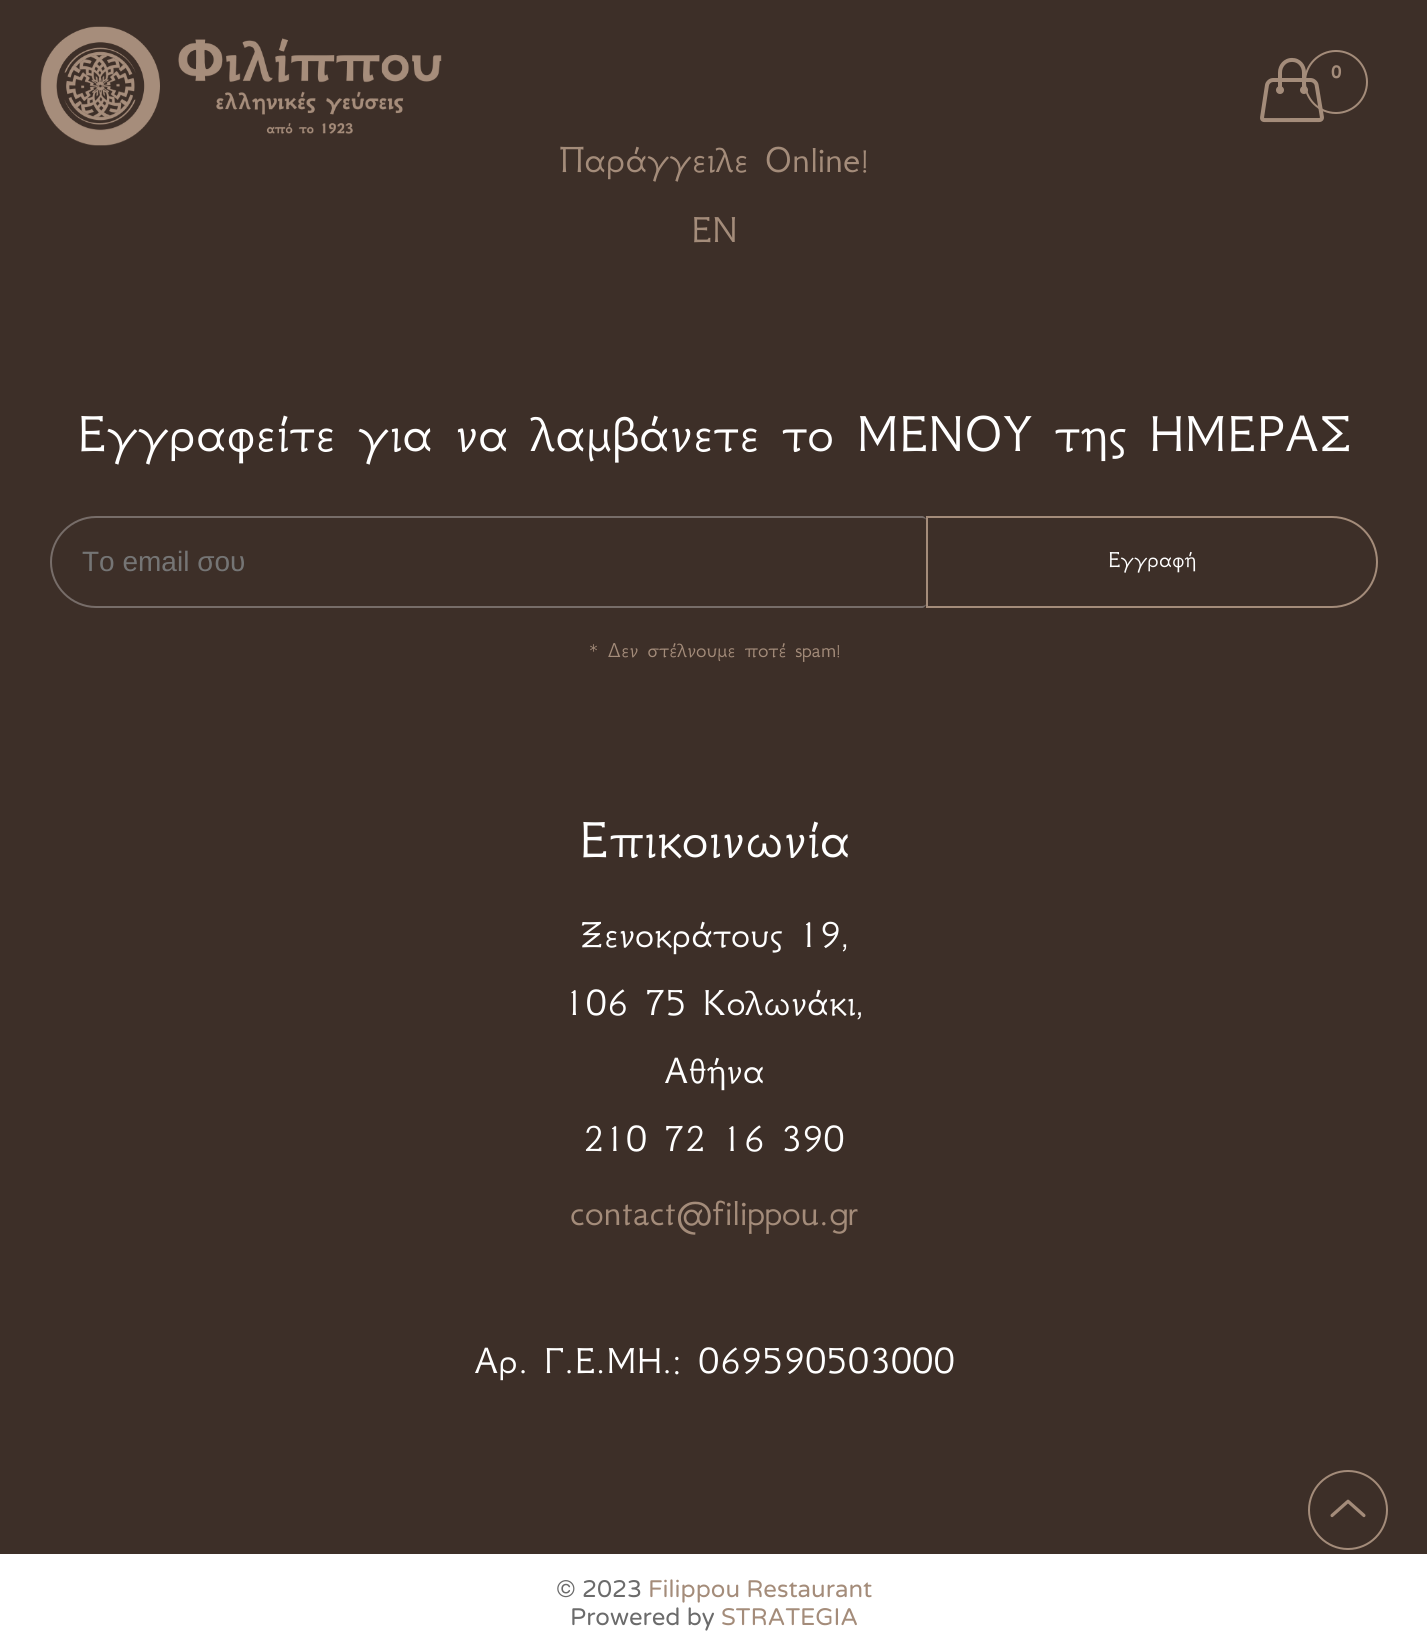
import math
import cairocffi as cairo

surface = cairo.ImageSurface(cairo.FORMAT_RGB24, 1427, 1650)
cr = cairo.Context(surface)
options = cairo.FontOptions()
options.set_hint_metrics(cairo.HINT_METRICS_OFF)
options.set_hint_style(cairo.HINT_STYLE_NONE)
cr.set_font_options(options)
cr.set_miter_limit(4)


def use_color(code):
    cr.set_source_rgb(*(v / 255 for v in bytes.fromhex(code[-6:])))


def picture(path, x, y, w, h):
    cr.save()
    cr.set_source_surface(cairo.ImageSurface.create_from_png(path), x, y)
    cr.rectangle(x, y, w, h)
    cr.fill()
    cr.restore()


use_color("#3d2f28")
cr.paint()
picture("img1.png", 40, 26, 402, 120)
picture("img2.png", 1260, 57, 64, 66)
cr.arc(1336, 82, 31, 0, 2 * math.pi)
use_color("#a48c7a")
cr.stroke()
cr.select_font_face("GFS Neohellenic", cairo.FONT_SLANT_NORMAL, cairo.FONT_WEIGHT_BOLD)
cr.set_font_size(20)
cr.move_to(1331, 78)
cr.show_text("0")
cr.select_font_face("GFS Neohellenic")
cr.set_font_size(40)
cr.move_to(559, 172)
cr.show_text("Παράγγειλε Online!")
cr.move_to(691, 242)
cr.show_text("EN")
cr.set_font_size(56)
use_color("#ffffff")
cr.move_to(77, 451)
cr.show_text("Εγγραφείτε για να λαμβάνετε το ΜΕΝΟΥ της ΗΜΕΡΑΣ")
use_color("#776d69")
cr.set_fill_rule(cairo.FILL_RULE_EVEN_ODD)
cr.new_path()
cr.move_to(96, 516)
cr.line_to(922, 516)
cr.curve_to(924, 516, 926, 518, 926, 520)
cr.line_to(926, 604)
cr.curve_to(926, 606, 924, 608, 922, 608)
cr.line_to(96, 608)
cr.curve_to(71, 608, 50, 587, 50, 562)
cr.curve_to(50, 537, 71, 516, 96, 516)
cr.close_path()
cr.move_to(96, 518)
cr.line_to(922, 518)
cr.curve_to(924, 518, 926, 519, 926, 520)
cr.line_to(926, 604)
cr.curve_to(926, 605, 924, 606, 922, 606)
cr.line_to(96, 606)
cr.curve_to(72, 606, 52, 586, 52, 562)
cr.curve_to(52, 538, 72, 518, 96, 518)
cr.close_path()
cr.fill()
cr.select_font_face("Liberation Sans")
cr.set_font_size(28)
use_color("#757575")
cr.move_to(82, 571)
cr.show_text("Το email σου")
cr.new_path()
cr.move_to(927, 517)
cr.line_to(1332, 517)
cr.curve_to(1357, 517, 1377, 537, 1377, 562)
cr.curve_to(1377, 587, 1357, 607, 1332, 607)
cr.line_to(927, 607)
cr.close_path()
use_color("#a48c7a")
cr.stroke()
cr.select_font_face("GFS Neohellenic")
cr.set_font_size(24)
use_color("#ffffff")
cr.move_to(1108, 567)
cr.show_text("Εγγραφή")
cr.set_font_size(22)
use_color("#a48c7a")
cr.move_to(588, 657)
cr.show_text("* Δεν στέλνουμε ποτέ spam!")
cr.set_font_size(56)
use_color("#ffffff")
cr.move_to(579, 857)
cr.show_text("Επικοινωνία")
cr.set_font_size(40)
cr.move_to(580, 947)
cr.show_text("Ξενοκράτους 19,")
cr.move_to(564, 1015)
cr.show_text("106 75 Κολωνάκι,")
cr.move_to(664, 1083)
cr.show_text("Αθήνα")
cr.move_to(583, 1151)
cr.show_text("210 72 16 390")
use_color("#a48c7a")
cr.move_to(570, 1225)
cr.show_text("contact@filippou.gr")
use_color("#ffffff")
cr.move_to(474, 1373)
cr.show_text("Αρ. Γ.Ε.ΜΗ.: 069590503000")
cr.rectangle(0, 1554, 1427, 96)
cr.fill()
cr.select_font_face("Varela Round")
cr.set_font_size(24)
use_color("#6b6b6b")
cr.move_to(556, 1597)
cr.show_text("© 2023")
use_color("#a48c7a")
cr.move_to(648, 1597)
cr.show_text("Filippou Restaurant")
use_color("#6b6b6b")
cr.move_to(570, 1625)
cr.show_text("Prowered by")
use_color("#a48c7a")
cr.move_to(721, 1625)
cr.show_text("STRATEGIA")
cr.new_path()
cr.arc(1348, 1510, 39, 0, 2 * math.pi)
cr.stroke()
picture("img3.png", 1330, 1499, 36, 19)
surface.write_to_png("result.png")
